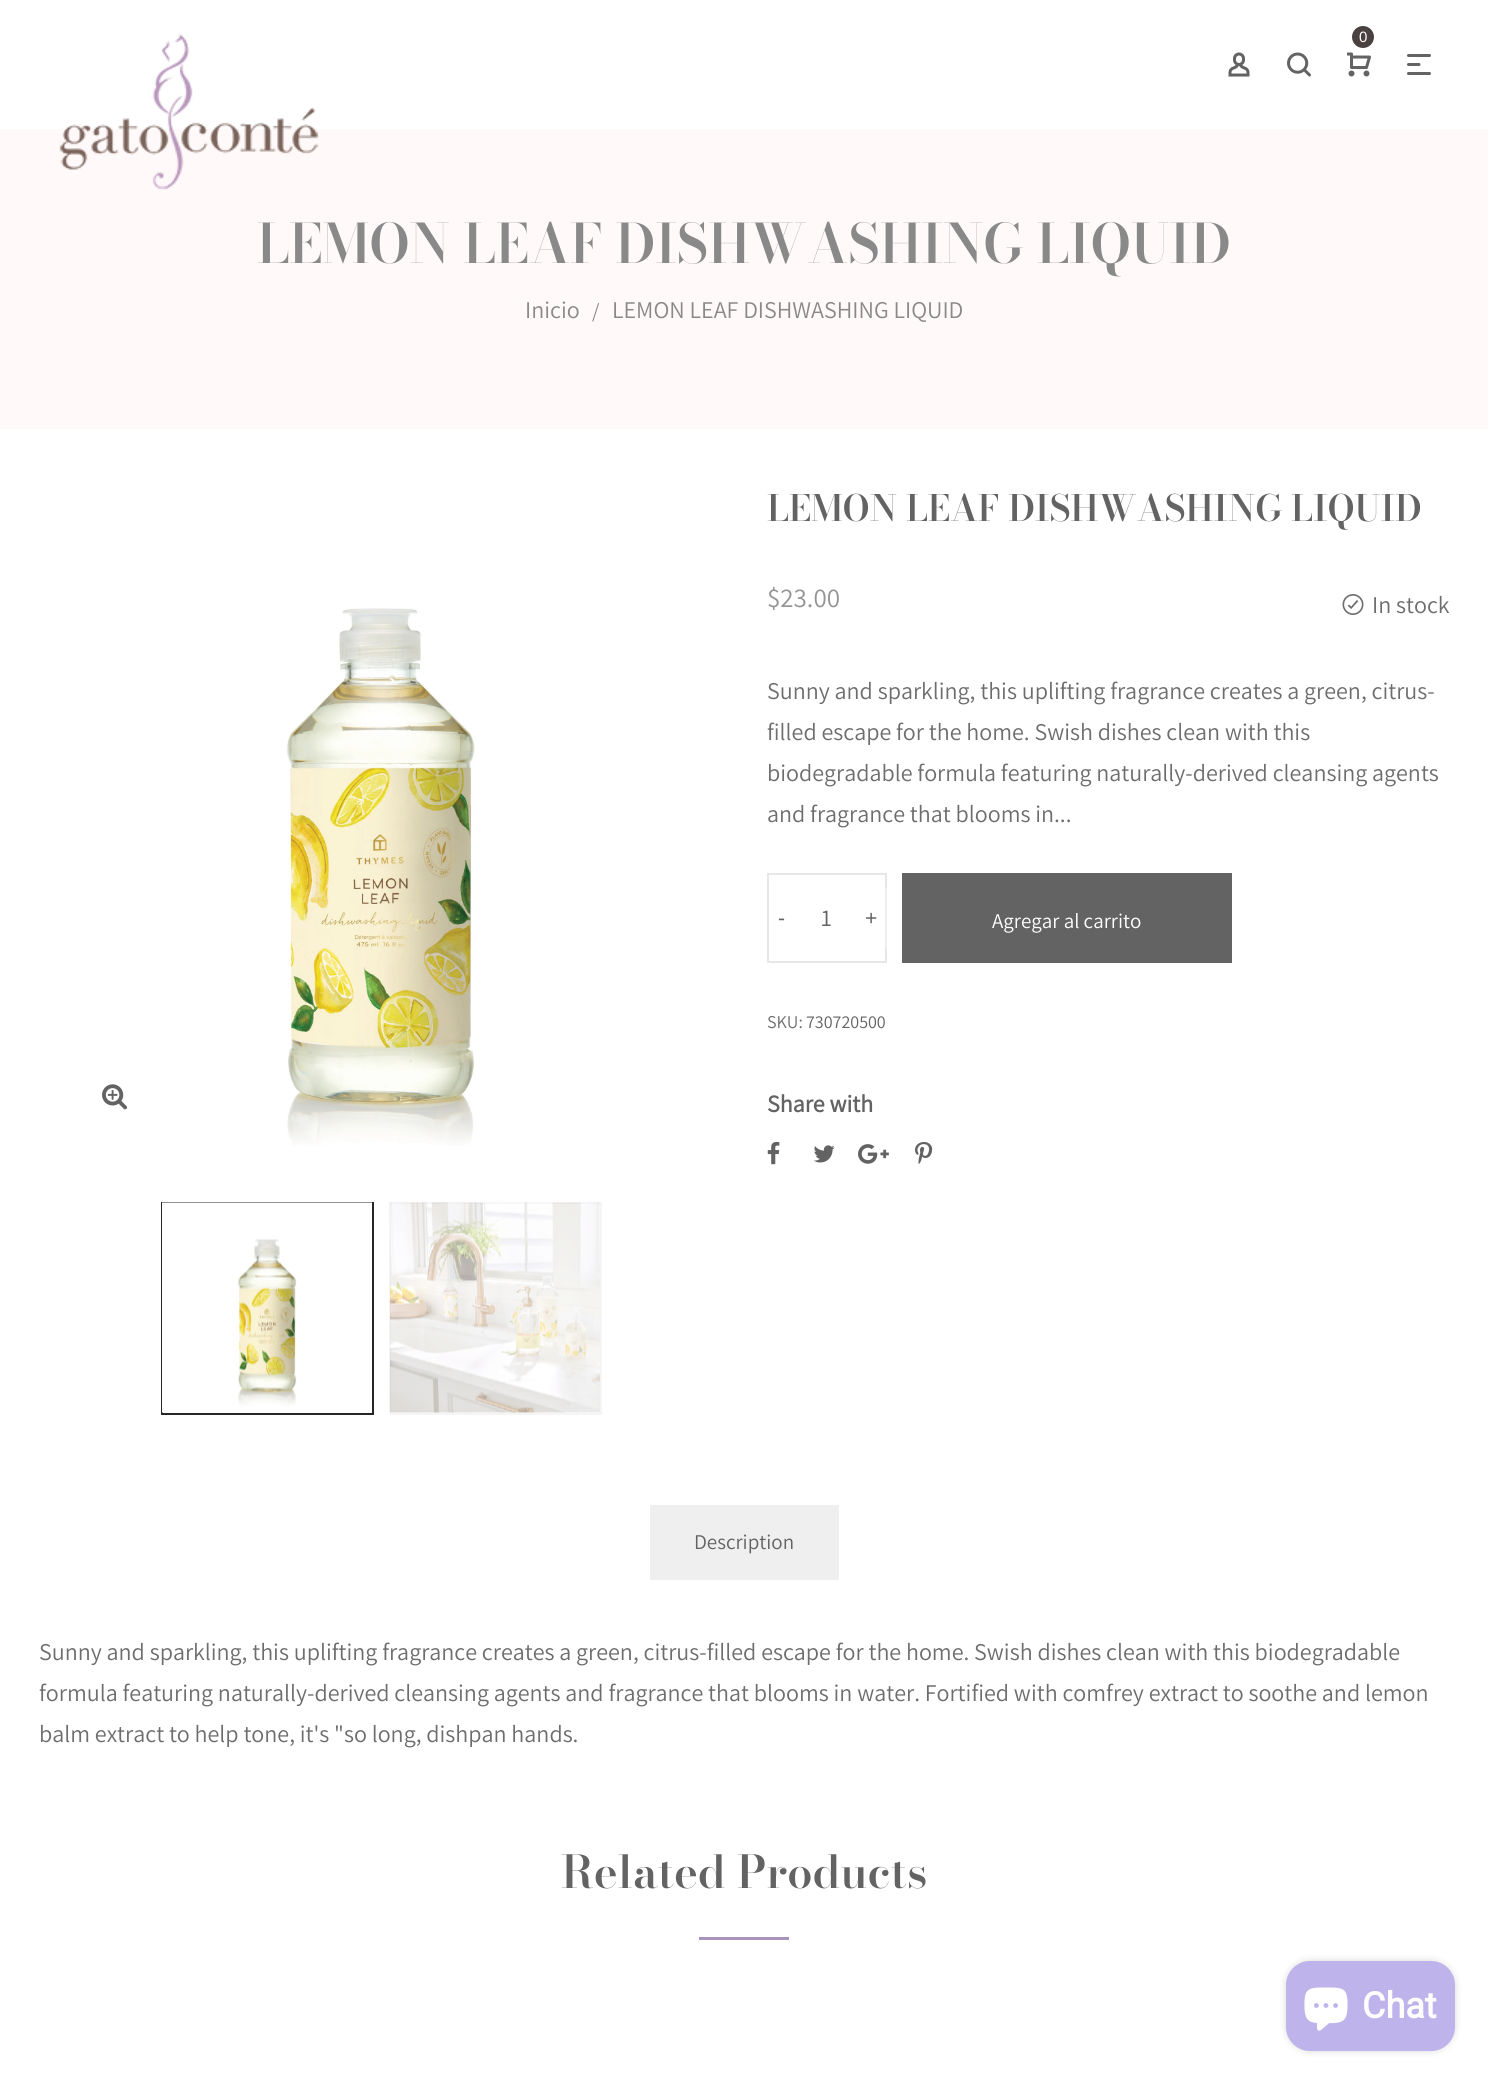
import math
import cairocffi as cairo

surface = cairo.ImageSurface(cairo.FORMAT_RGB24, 1488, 2082)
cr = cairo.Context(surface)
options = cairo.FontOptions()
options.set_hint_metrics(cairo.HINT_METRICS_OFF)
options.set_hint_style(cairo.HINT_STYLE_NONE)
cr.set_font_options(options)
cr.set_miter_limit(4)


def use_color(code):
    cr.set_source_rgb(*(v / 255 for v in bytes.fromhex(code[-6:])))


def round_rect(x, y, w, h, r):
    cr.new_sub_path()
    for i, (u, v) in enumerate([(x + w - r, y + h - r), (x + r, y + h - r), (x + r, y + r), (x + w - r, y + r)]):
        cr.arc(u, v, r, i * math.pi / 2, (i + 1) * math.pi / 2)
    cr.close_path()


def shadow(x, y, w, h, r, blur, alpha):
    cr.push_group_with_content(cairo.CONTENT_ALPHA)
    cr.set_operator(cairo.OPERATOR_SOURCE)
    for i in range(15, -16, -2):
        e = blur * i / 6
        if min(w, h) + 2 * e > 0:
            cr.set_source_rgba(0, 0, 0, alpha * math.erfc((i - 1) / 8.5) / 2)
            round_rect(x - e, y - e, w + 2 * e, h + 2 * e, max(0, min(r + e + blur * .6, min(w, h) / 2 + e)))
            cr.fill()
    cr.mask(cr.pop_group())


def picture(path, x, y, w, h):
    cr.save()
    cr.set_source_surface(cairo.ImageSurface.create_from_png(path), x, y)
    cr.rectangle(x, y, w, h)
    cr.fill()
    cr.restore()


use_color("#ffffff")
cr.paint()
use_color("#fff9f9")
cr.rectangle(0, 129, 1488, 300)
cr.fill()
picture("img1.png", 59, 34, 260, 156)
use_color("#4a4141")
cr.arc(1363, 37, 11, 0, 2 * math.pi)
cr.fill()
cr.select_font_face("Liberation Sans")
cr.set_font_size(15)
use_color("#ffffff")
cr.move_to(1359, 42)
cr.show_text("0")
picture("img2.png", 1347, 52, 24, 25)
picture("img3.png", 1228, 52, 22, 25)
picture("img4.png", 1287, 52, 24, 25)
picture("img5.png", 1407, 54, 24, 21)
cr.select_font_face("Bodoni Moda SemiBold")
cr.set_font_size(54)
use_color("#898989")
cr.move_to(257, 263)
cr.show_text("LEMON LEAF DISHWASHING LIQUID")
cr.select_font_face("Assistant")
cr.set_font_size(24)
cr.move_to(525, 318)
cr.show_text("Inicio")
cr.set_font_size(21)
cr.move_to(592, 318)
cr.show_text("/")
cr.set_font_size(24)
cr.move_to(612, 318)
cr.show_text("LEMON LEAF DISHWASHING LIQUID")
picture("img6.png", 102, 1084, 26, 26)
picture("img7.png", 286, 608, 189, 538)
cr.rectangle(162, 1203, 211, 211)
use_color("#262626")
cr.stroke()
picture("img8.png", 162, 1202, 210, 211)
cr.rectangle(390, 1203, 211, 211)
use_color("#f5f5f5")
cr.stroke()
picture("img9.png", 390, 1202, 210, 211)
cr.select_font_face("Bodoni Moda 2 SemiBold")
cr.set_font_size(36)
use_color("#636363")
cr.move_to(767, 521)
cr.show_text("LEMON LEAF DISHWASHING LIQUID")
cr.select_font_face("Assistant")
cr.set_font_size(27)
use_color("#949494")
cr.move_to(767, 607)
cr.show_text("$23.00")
picture("img10.png", 1342, 594, 22, 21)
cr.set_font_size(24)
use_color("#6d6d6d")
cr.move_to(1372, 613)
cr.show_text("In stock")
cr.move_to(767, 699)
cr.show_text("Sunny and sparkling, this uplifting fragrance creates a green, citrus-")
cr.move_to(767, 740)
cr.show_text("filled escape for the home. Swish dishes clean with this")
cr.move_to(767, 781)
cr.show_text("biodegradable formula featuring naturally-derived cleansing agents")
cr.move_to(767, 822)
cr.show_text("and fragrance that blooms in...")
cr.rectangle(768, 874, 118, 88)
use_color("#e7e7e7")
cr.stroke()
cr.select_font_face("Liberation Sans")
cr.set_font_size(21)
use_color("#636363")
cr.move_to(778, 925)
cr.show_text("-")
cr.select_font_face("Assistant")
cr.set_font_size(24)
cr.move_to(821, 926)
cr.show_text("1")
cr.select_font_face("Liberation Sans")
cr.set_font_size(21)
cr.move_to(865, 925)
cr.show_text("+")
use_color("#eeeeee")
cr.rectangle(885, 888, 2, 60)
cr.fill()
use_color("#636363")
cr.rectangle(902, 873, 330, 90)
cr.fill()
cr.select_font_face("Assistant")
use_color("#ffffff")
cr.move_to(992, 928)
cr.show_text("Agregar al carrito")
cr.set_font_size(18)
use_color("#6d6d6d")
cr.move_to(767, 1028)
cr.show_text("SKU:")
use_color("#636363")
cr.move_to(806, 1028)
cr.show_text("730720500")
cr.select_font_face("Assistant", cairo.FONT_SLANT_NORMAL, cairo.FONT_WEIGHT_BOLD)
cr.set_font_size(24)
cr.move_to(767, 1112)
cr.show_text("Share with")
picture("img11.png", 767, 1141, 13, 24)
picture("img12.png", 813, 1145, 22, 18)
picture("img13.png", 858, 1144, 31, 20)
picture("img14.png", 915, 1141, 18, 24)
use_color("#efefef")
cr.rectangle(650, 1505, 189, 75)
cr.fill()
cr.select_font_face("Assistant")
cr.set_font_size(21)
use_color("#636363")
cr.move_to(694, 1549)
cr.show_text("Description")
cr.set_font_size(24)
use_color("#6d6d6d")
cr.move_to(39, 1660)
cr.show_text("Sunny and sparkling, this uplifting fragrance creates a green, citrus-filled escape for the home. Swish dishes clean with this biodegradable")
cr.move_to(39, 1701)
cr.show_text("formula featuring naturally-derived cleansing agents and fragrance that blooms in water. Fortified with comfrey extract to soothe and lemon")
cr.move_to(39, 1742)
cr.show_text("balm extract to help tone, it's \"so long, dishpan hands.")
cr.select_font_face("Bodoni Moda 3 SemiBold")
cr.set_font_size(45)
use_color("#636363")
cr.move_to(561, 1888)
cr.show_text("Related Products")
use_color("#a694bb")
cr.rectangle(699, 1937, 90, 3)
cr.fill()
use_color("#000000")
shadow(1286, 1961, 169, 90, 24, 4, 0.15)
use_color("#bfb3ec")
round_rect(1286, 1961, 169, 90, 24)
cr.fill()
picture("img15.png", 1304, 1987, 44, 44)
cr.select_font_face("Roboto", cairo.FONT_SLANT_NORMAL, cairo.FONT_WEIGHT_BOLD)
cr.set_font_size(36)
use_color("#ffffff")
cr.move_to(1362, 2018)
cr.show_text("Chat")
surface.write_to_png("result.png")
